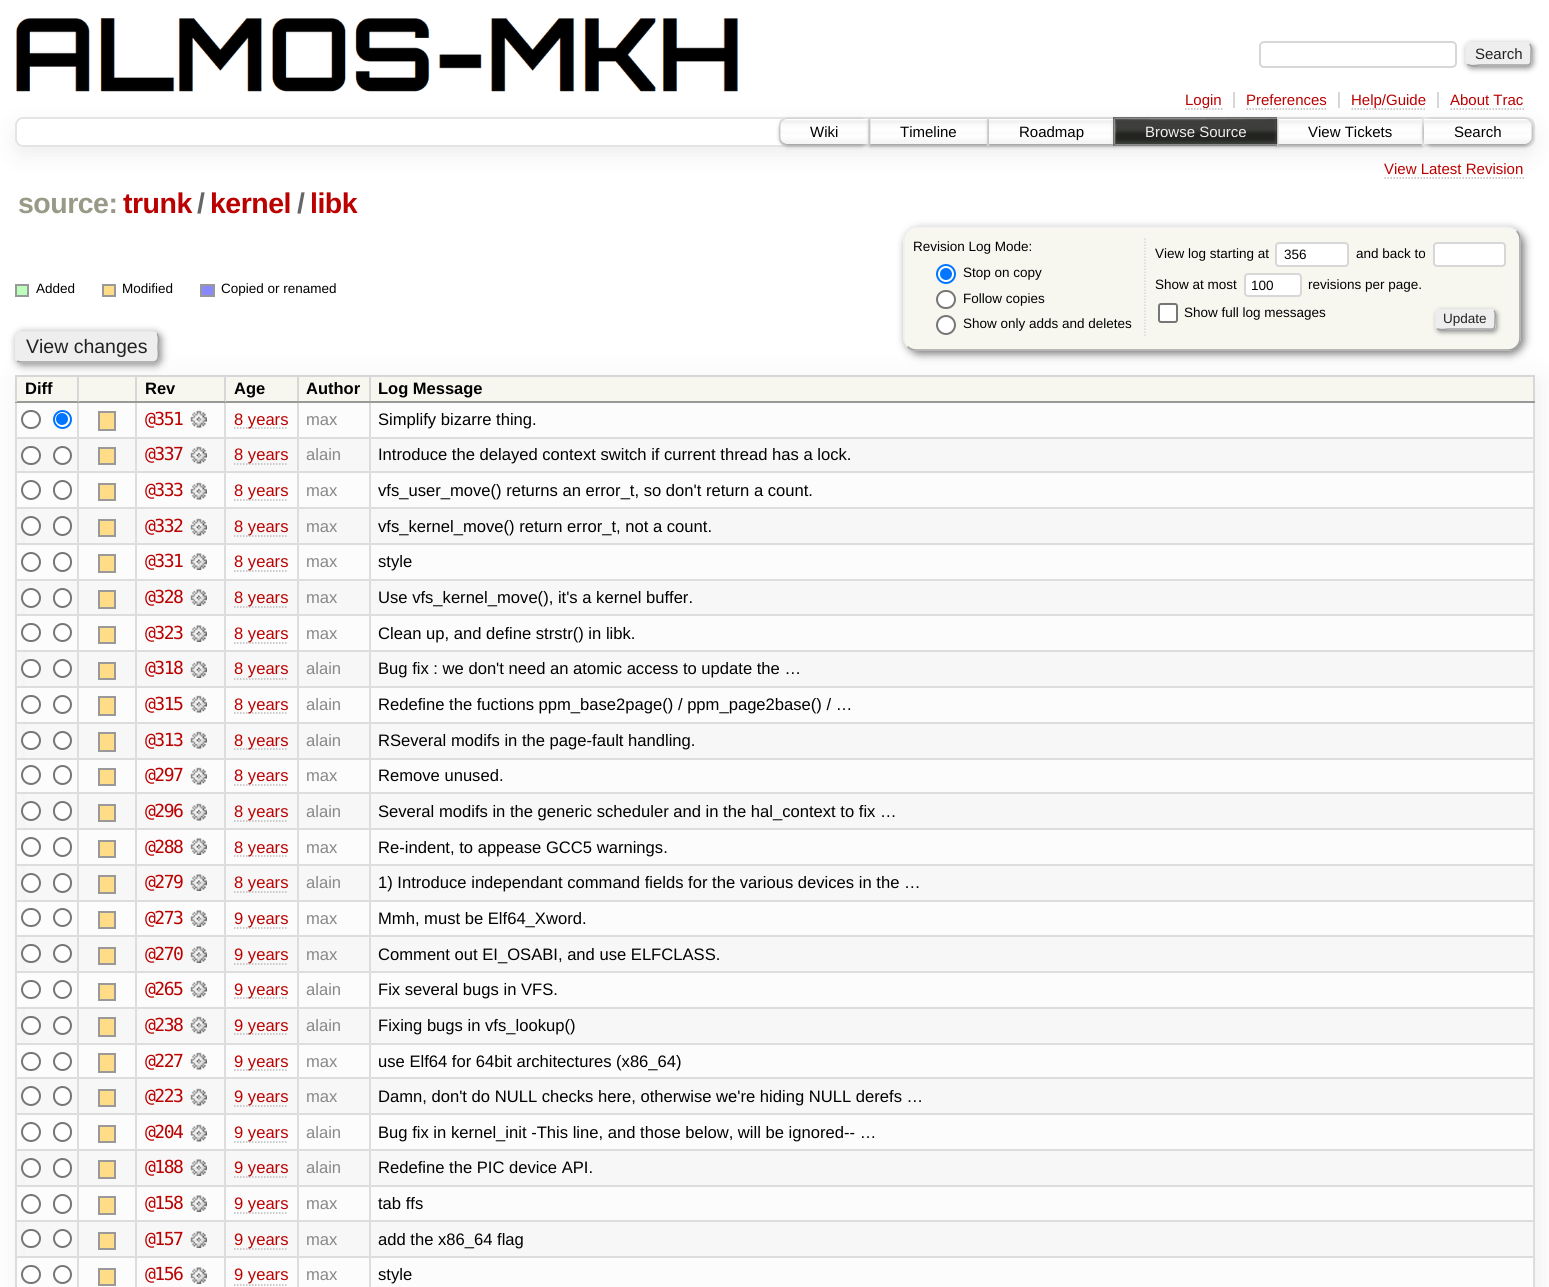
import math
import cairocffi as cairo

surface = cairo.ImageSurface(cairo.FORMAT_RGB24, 1549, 1287)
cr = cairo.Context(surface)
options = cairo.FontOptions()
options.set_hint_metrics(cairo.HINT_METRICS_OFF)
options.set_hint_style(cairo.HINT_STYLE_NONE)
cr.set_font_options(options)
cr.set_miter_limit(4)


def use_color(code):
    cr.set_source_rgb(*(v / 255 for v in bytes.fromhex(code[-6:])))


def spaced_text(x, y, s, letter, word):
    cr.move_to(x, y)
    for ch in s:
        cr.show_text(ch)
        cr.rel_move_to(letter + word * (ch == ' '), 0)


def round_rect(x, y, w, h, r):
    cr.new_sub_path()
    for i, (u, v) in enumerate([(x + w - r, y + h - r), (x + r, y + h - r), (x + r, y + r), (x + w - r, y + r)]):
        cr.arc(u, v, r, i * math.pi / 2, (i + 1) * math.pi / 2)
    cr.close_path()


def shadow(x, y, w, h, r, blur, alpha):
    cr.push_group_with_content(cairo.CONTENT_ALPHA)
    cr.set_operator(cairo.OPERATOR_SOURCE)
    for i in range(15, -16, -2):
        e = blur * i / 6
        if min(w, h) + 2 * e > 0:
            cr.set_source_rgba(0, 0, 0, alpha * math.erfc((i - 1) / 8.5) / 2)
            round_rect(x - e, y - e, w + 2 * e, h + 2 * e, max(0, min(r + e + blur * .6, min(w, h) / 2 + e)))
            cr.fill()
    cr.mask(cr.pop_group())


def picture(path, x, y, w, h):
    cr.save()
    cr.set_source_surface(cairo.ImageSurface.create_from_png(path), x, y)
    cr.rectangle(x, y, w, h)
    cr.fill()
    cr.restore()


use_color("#ffffff")
cr.paint()
cr.save()
cr.set_fill_rule(cairo.FILL_RULE_EVEN_ODD)
cr.new_path()
cr.move_to(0, 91)
cr.line_to(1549, 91)
cr.line_to(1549, 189)
cr.line_to(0, 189)
cr.close_path()
cr.move_to(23, 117)
cr.line_to(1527, 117)
cr.curve_to(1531.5, 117, 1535, 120.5, 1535, 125)
cr.line_to(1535, 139)
cr.curve_to(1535, 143.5, 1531.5, 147, 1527, 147)
cr.line_to(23, 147)
cr.curve_to(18.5, 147, 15, 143.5, 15, 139)
cr.line_to(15, 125)
cr.curve_to(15, 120.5, 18.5, 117, 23, 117)
cr.close_path()
cr.clip()
use_color("#eeeeee")
shadow(15, 125, 1520, 30, 8, 11, 1)
cr.restore()
picture("img1.png", 16, 18, 722, 74)
round_rect(1260, 42, 196, 25, 4)
use_color("#d7d7d7")
cr.stroke()
use_color("#888888")
shadow(1467, 44, 66, 24, 5, 3, 1)
use_color("#eeeeee")
round_rect(1466, 42, 66, 24, 5)
cr.fill()
cr.new_path()
cr.move_to(1529.5, 44)
cr.curve_to(1532, 46, 1531, 51, 1531, 54)
cr.curve_to(1531, 67, 1531.5, 65, 1517.5, 65)
cr.line_to(1479.5, 65)
cr.curve_to(1479, 65, 1470, 67, 1467.5, 64)
use_color("#9f9f9f")
cr.set_line_width(1.5)
cr.stroke()
cr.new_path()
cr.move_to(1467.5, 64)
cr.curve_to(1465, 62, 1466, 57, 1466, 54)
cr.curve_to(1466, 41, 1465.5, 43, 1479.5, 43)
cr.line_to(1517.5, 43)
cr.curve_to(1518, 43, 1527, 41, 1529.5, 44)
use_color("#eeeeee")
cr.stroke()
cr.select_font_face("Liberation Sans")
cr.set_font_size(15)
use_color("#222222")
cr.move_to(1475, 59)
cr.show_text("Search")
use_color("#d7d7d7")
cr.rectangle(1233, 92, 2, 16)
cr.fill()
cr.new_path()
cr.move_to(1185, 109)
cr.line_to(1222.5, 109)
use_color("#bbbbbb")
cr.set_dash([1.5, 1.5])
cr.stroke()
use_color("#bb0000")
cr.move_to(1185, 105)
cr.show_text("Login")
use_color("#d7d7d7")
cr.rectangle(1338, 92, 2, 16)
cr.fill()
use_color("#bb0000")
cr.move_to(1246, 105)
cr.show_text("Preferences")
cr.new_path()
cr.move_to(1246.5, 109)
cr.line_to(1327.5, 109)
use_color("#bbbbbb")
cr.stroke()
use_color("#d7d7d7")
cr.rectangle(1437, 92, 2, 16)
cr.fill()
cr.new_path()
cr.move_to(1351.5, 109)
cr.line_to(1426.5, 109)
use_color("#bbbbbb")
cr.stroke()
use_color("#bb0000")
cr.move_to(1351, 105)
cr.show_text("Help/Guide")
cr.move_to(1450, 105)
cr.show_text("About Trac")
cr.new_path()
cr.move_to(1450.5, 109)
cr.line_to(1524, 109)
use_color("#bbbbbb")
cr.stroke()
round_rect(16, 118, 1518, 28, 7)
use_color("#e4e4e4")
cr.set_line_width(2)
cr.set_dash([])
cr.stroke()
use_color("#ffffff")
cr.new_path()
cr.move_to(787, 117)
cr.line_to(870, 117)
cr.line_to(870, 146)
cr.line_to(787, 146)
cr.curve_to(782.5, 146, 779, 142.5, 779, 138)
cr.line_to(779, 125)
cr.curve_to(779, 120.5, 782.5, 117, 787, 117)
cr.close_path()
cr.fill()
picture("img2.png", 779, 120, 89, 25)
cr.new_path()
cr.move_to(787, 118)
cr.line_to(869, 118)
cr.line_to(869, 145)
cr.line_to(787, 145)
cr.curve_to(783, 145, 780, 142, 780, 138)
cr.line_to(780, 125)
cr.curve_to(780, 121, 783, 118, 787, 118)
cr.close_path()
use_color("#e4e4e4")
cr.stroke()
cr.save()
cr.set_fill_rule(cairo.FILL_RULE_EVEN_ODD)
cr.new_path()
cr.move_to(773, 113)
cr.line_to(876, 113)
cr.line_to(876, 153)
cr.line_to(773, 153)
cr.close_path()
cr.move_to(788, 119)
cr.line_to(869, 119)
cr.line_to(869, 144)
cr.line_to(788, 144)
cr.curve_to(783.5, 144, 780, 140.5, 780, 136)
cr.line_to(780, 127)
cr.curve_to(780, 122.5, 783.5, 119, 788, 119)
cr.close_path()
cr.clip()
use_color("#999999")
shadow(780, 120, 89, 26, 8, 2, 1)
cr.restore()
use_color("#000000")
cr.move_to(810, 137)
cr.show_text("Wiki")
use_color("#ffffff")
cr.rectangle(871, 123, 2, 20)
cr.fill()
picture("img3.png", 868, 120, 119, 24)
cr.rectangle(870, 118, 118, 27)
use_color("#e4e4e4")
cr.stroke()
cr.save()
cr.set_fill_rule(cairo.FILL_RULE_EVEN_ODD)
cr.new_path()
cr.move_to(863, 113)
cr.line_to(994, 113)
cr.line_to(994, 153)
cr.line_to(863, 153)
cr.close_path()
cr.move_to(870, 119)
cr.line_to(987, 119)
cr.line_to(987, 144)
cr.line_to(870, 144)
cr.close_path()
cr.clip()
use_color("#999999")
shadow(870, 120, 117, 26, 0, 2, 1)
cr.restore()
use_color("#000000")
cr.move_to(900, 137)
cr.show_text("Timeline")
use_color("#ffffff")
cr.rectangle(989, 119, 2, 25)
cr.fill()
picture("img4.png", 989, 120, 124, 24)
cr.rectangle(988, 118, 126, 27)
use_color("#e4e4e4")
cr.stroke()
cr.save()
cr.set_fill_rule(cairo.FILL_RULE_EVEN_ODD)
cr.new_path()
cr.move_to(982, 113)
cr.line_to(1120, 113)
cr.line_to(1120, 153)
cr.line_to(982, 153)
cr.close_path()
cr.move_to(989, 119)
cr.line_to(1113, 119)
cr.line_to(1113, 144)
cr.line_to(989, 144)
cr.close_path()
cr.clip()
use_color("#999999")
shadow(989, 120, 124, 26, 0, 2, 1)
cr.restore()
use_color("#000000")
cr.move_to(1019, 137)
cr.show_text("Roadmap")
cr.rectangle(1114, 118, 163, 27)
use_color("#666666")
cr.stroke()
use_color("#999999")
shadow(1115, 120, 162, 26, 0, 2, 1)
use_color("#000000")
cr.rectangle(1115, 119, 162, 25)
cr.fill()
picture("img5.png", 1114, 118, 163, 26)
use_color("#eeeeee")
cr.move_to(1145, 137)
cr.show_text("Browse Source")
use_color("#ffffff")
cr.rectangle(1279, 119, 2, 25)
cr.fill()
picture("img6.png", 1276, 120, 146, 24)
cr.rectangle(1278, 118, 145, 27)
use_color("#e4e4e4")
cr.stroke()
cr.save()
cr.set_fill_rule(cairo.FILL_RULE_EVEN_ODD)
cr.new_path()
cr.move_to(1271, 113)
cr.line_to(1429, 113)
cr.line_to(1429, 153)
cr.line_to(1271, 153)
cr.close_path()
cr.move_to(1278, 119)
cr.line_to(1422, 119)
cr.line_to(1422, 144)
cr.line_to(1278, 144)
cr.close_path()
cr.clip()
use_color("#999999")
shadow(1278, 120, 144, 26, 0, 2, 1)
cr.restore()
use_color("#000000")
cr.move_to(1308, 137)
cr.show_text("View Tickets")
use_color("#ffffff")
cr.new_path()
cr.move_to(1422, 117)
cr.line_to(1525, 117)
cr.curve_to(1529.5, 117, 1533, 120.5, 1533, 125)
cr.line_to(1533, 138)
cr.curve_to(1533, 142.5, 1529.5, 146, 1525, 146)
cr.line_to(1422, 146)
cr.close_path()
cr.fill()
picture("img7.png", 1424, 120, 109, 25)
cr.new_path()
cr.move_to(1423, 118)
cr.line_to(1525, 118)
cr.curve_to(1529, 118, 1532, 121, 1532, 125)
cr.line_to(1532, 138)
cr.curve_to(1532, 142, 1529, 145, 1525, 145)
cr.line_to(1423, 145)
cr.close_path()
use_color("#e4e4e4")
cr.stroke()
cr.save()
cr.set_fill_rule(cairo.FILL_RULE_EVEN_ODD)
cr.new_path()
cr.move_to(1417, 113)
cr.line_to(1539, 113)
cr.line_to(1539, 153)
cr.line_to(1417, 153)
cr.close_path()
cr.move_to(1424, 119)
cr.line_to(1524, 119)
cr.curve_to(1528.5, 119, 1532, 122.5, 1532, 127)
cr.line_to(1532, 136)
cr.curve_to(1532, 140.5, 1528.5, 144, 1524, 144)
cr.line_to(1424, 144)
cr.close_path()
cr.clip()
use_color("#999999")
shadow(1424, 120, 108, 26, 8, 2, 1)
cr.restore()
use_color("#000000")
cr.move_to(1454, 137)
cr.show_text("Search")
use_color("#bb0000")
cr.move_to(1384, 174)
cr.show_text("View Latest Revision")
cr.new_path()
cr.move_to(1384.5, 178)
cr.line_to(1524, 178)
use_color("#bbbbbb")
cr.set_line_width(1.5)
cr.set_dash([1.5, 1.5])
cr.stroke()
cr.select_font_face("Liberation Sans", cairo.FONT_SLANT_NORMAL, cairo.FONT_WEIGHT_BOLD)
cr.set_font_size(28.5)
use_color("#999988")
spaced_text(18, 213, "source:", -0.5, 0)
use_color("#bb0000")
spaced_text(123, 213, "trunk", -0.5, 0)
use_color("#666666")
spaced_text(197, 213, "/", -0.5, 0)
use_color("#bb0000")
spaced_text(210, 213, "kernel", -0.5, 0)
use_color("#666666")
spaced_text(297, 213, "/", -0.5, 0)
use_color("#bb0000")
spaced_text(310, 213, "libk", -0.5, 0)
use_color("#bbffbb")
cr.rectangle(16, 285, 12, 11)
cr.fill_preserve()
use_color("#999999")
cr.set_line_width(2)
cr.set_dash([])
cr.stroke()
cr.select_font_face("Liberation Sans")
cr.set_font_size(13.5)
use_color("#000000")
cr.move_to(36, 293)
cr.show_text("Added")
use_color("#ffdd88")
cr.rectangle(103, 285, 12, 11)
cr.fill_preserve()
use_color("#999999")
cr.stroke()
use_color("#000000")
cr.move_to(122, 293)
cr.show_text("Modified")
use_color("#8888ff")
cr.rectangle(201, 285, 13, 11)
cr.fill_preserve()
use_color("#999999")
cr.stroke()
use_color("#000000")
cr.move_to(221, 293)
cr.show_text("Copied or renamed")
use_color("#777777")
shadow(906, 230, 618, 124, 14, 4.5, 1)
use_color("#eeeeee")
shadow(20, 381, 1519, 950, 0, 14.5, 1)
use_color("#f7f7f0")
round_rect(903, 227, 618, 124, 14)
cr.fill()
cr.new_path()
cr.move_to(1516.5, 231)
cr.curve_to(1519, 233.5, 1520, 236.5, 1520, 240)
cr.line_to(1520, 337.5)
cr.curve_to(1520, 341, 1519, 344, 1516.5, 346.5)
cr.curve_to(1514, 349, 1511, 350, 1507.5, 350)
cr.line_to(916.5, 350)
cr.curve_to(913, 350, 910, 349, 907.5, 346.5)
use_color("#9f9f9f")
cr.set_line_width(1.5)
cr.stroke()
cr.new_path()
cr.move_to(907.5, 346.5)
cr.curve_to(905, 344, 904, 341, 904, 337.5)
cr.line_to(904, 240)
cr.curve_to(904, 236.5, 905, 233.5, 907.5, 231)
cr.curve_to(910, 228.5, 913, 227, 916.5, 227)
cr.line_to(1507.5, 227)
cr.curve_to(1511, 227, 1514, 228.5, 1516.5, 231)
use_color("#eeeeee")
cr.stroke()
cr.new_path()
cr.move_to(1145, 238.5)
cr.line_to(1145, 337.5)
use_color("#d7d7d7")
cr.set_dash([1.5, 1.5])
cr.stroke()
use_color("#000000")
cr.move_to(913, 251)
cr.show_text("Revision Log Mode:")
use_color("#ffffff")
cr.new_path()
cr.arc(946, 274, 9, 0, 2 * math.pi)
cr.fill_preserve()
use_color("#0075ff")
cr.set_line_width(2)
cr.set_dash([])
cr.stroke()
cr.arc(946, 274, 6, 0, 2 * math.pi)
cr.fill()
use_color("#000000")
cr.move_to(963, 277)
cr.show_text("Stop on copy")
use_color("#ffffff")
round_rect(937, 291, 18, 17, 8.5)
cr.fill_preserve()
use_color("#767676")
cr.stroke()
use_color("#000000")
cr.move_to(963, 303)
cr.show_text("Follow copies")
use_color("#ffffff")
cr.new_path()
cr.arc(946, 325, 9, 0, 2 * math.pi)
cr.fill_preserve()
use_color("#767676")
cr.stroke()
use_color("#000000")
cr.move_to(963, 328)
cr.show_text("Show only adds and deletes")
cr.move_to(1155, 258)
cr.show_text("View log starting at")
use_color("#ffffff")
round_rect(1276, 243, 72, 23, 3)
cr.fill_preserve()
use_color("#d7d7d7")
cr.stroke()
use_color("#000000")
cr.move_to(1284, 259)
cr.show_text("356")
cr.move_to(1356, 258)
cr.show_text("and back to")
use_color("#ffffff")
round_rect(1434, 243, 71, 23, 3)
cr.fill_preserve()
use_color("#d7d7d7")
cr.stroke()
use_color("#000000")
cr.move_to(1155, 289)
cr.show_text("Show at most")
use_color("#ffffff")
round_rect(1245, 274, 56, 22, 3)
cr.fill_preserve()
use_color("#d7d7d7")
cr.stroke()
use_color("#000000")
cr.move_to(1251, 290)
cr.show_text("100")
cr.move_to(1308, 289)
cr.show_text("revisions per page.")
use_color("#ffffff")
round_rect(1159, 304, 18, 18, 2)
cr.fill_preserve()
use_color("#767676")
cr.stroke()
use_color("#000000")
cr.move_to(1184, 317)
cr.show_text("Show full log messages")
use_color("#888888")
shadow(1437, 311, 60, 21, 4, 2.5, 1)
use_color("#eeeeee")
round_rect(1436, 309, 60, 21, 4)
cr.fill()
cr.new_path()
cr.move_to(1494, 310.5)
cr.curve_to(1496, 313, 1495, 317, 1495, 319.5)
cr.curve_to(1495, 331, 1495, 329, 1483, 329)
cr.line_to(1448, 329)
cr.curve_to(1448, 329, 1439.5, 330.5, 1437, 328.5)
use_color("#9f9f9f")
cr.set_line_width(1.5)
cr.stroke()
cr.new_path()
cr.move_to(1437, 328.5)
cr.curve_to(1435, 326, 1436, 322, 1436, 319.5)
cr.curve_to(1436, 308, 1436, 310, 1448, 310)
cr.line_to(1483, 310)
cr.curve_to(1483, 310, 1491.5, 308.5, 1494, 310.5)
use_color("#eeeeee")
cr.stroke()
use_color("#222222")
cr.move_to(1443, 323)
cr.show_text("Update")
use_color("#f7f7f0")
cr.rectangle(17, 377, 1516, 24)
cr.fill()
use_color("#d7d7d7")
cr.rectangle(369, 375, 1166, 2)
cr.fill()
use_color("#dddddd")
cr.rectangle(15, 437, 1520, 2)
cr.fill()
cr.rectangle(15, 471, 1520, 2)
cr.fill()
cr.rectangle(15, 507, 1520, 2)
cr.fill()
cr.rectangle(15, 543, 1520, 2)
cr.fill()
cr.rectangle(15, 579, 1520, 2)
cr.fill()
cr.rectangle(15, 614, 1520, 2)
cr.fill()
cr.rectangle(15, 650, 1520, 2)
cr.fill()
cr.rectangle(15, 686, 1520, 2)
cr.fill()
cr.rectangle(15, 722, 1520, 2)
cr.fill()
cr.rectangle(15, 758, 1520, 2)
cr.fill()
cr.rectangle(15, 792, 1520, 2)
cr.fill()
cr.rectangle(15, 828, 1520, 2)
cr.fill()
cr.rectangle(15, 864, 1520, 2)
cr.fill()
cr.rectangle(15, 900, 1520, 2)
cr.fill()
cr.rectangle(15, 935, 1520, 2)
cr.fill()
cr.rectangle(15, 971, 1520, 2)
cr.fill()
cr.rectangle(15, 1007, 1520, 2)
cr.fill()
cr.rectangle(15, 1043, 1520, 2)
cr.fill()
cr.rectangle(15, 1077, 1520, 2)
cr.fill()
cr.rectangle(15, 1113, 1520, 2)
cr.fill()
cr.rectangle(15, 1149, 1520, 2)
cr.fill()
cr.rectangle(15, 1185, 1520, 2)
cr.fill()
cr.rectangle(15, 1220, 1520, 2)
cr.fill()
cr.rectangle(15, 1256, 1520, 2)
cr.fill()
cr.rectangle(1533, 401, 2, 886)
cr.fill()
use_color("#d7d7d7")
cr.rectangle(1533, 375, 2, 27)
cr.fill()
use_color("#fcfcfc")
cr.rectangle(17, 403, 1516, 34)
cr.fill()
use_color("#f7f7f7")
cr.rectangle(25, 439, 1508, 32)
cr.fill()
use_color("#fcfcfc")
cr.rectangle(17, 473, 1516, 34)
cr.fill()
use_color("#f7f7f7")
cr.rectangle(25, 509, 1508, 34)
cr.fill()
use_color("#fcfcfc")
cr.rectangle(17, 545, 1516, 34)
cr.fill()
use_color("#f7f7f7")
cr.rectangle(25, 581, 1508, 33)
cr.fill()
use_color("#fcfcfc")
cr.rectangle(17, 616, 1516, 34)
cr.fill()
use_color("#f7f7f7")
cr.rectangle(25, 652, 1508, 34)
cr.fill()
use_color("#fcfcfc")
cr.rectangle(17, 688, 1516, 34)
cr.fill()
use_color("#f7f7f7")
cr.rectangle(25, 724, 1508, 34)
cr.fill()
use_color("#fcfcfc")
cr.rectangle(17, 760, 1516, 32)
cr.fill()
use_color("#f7f7f7")
cr.rectangle(25, 794, 1508, 34)
cr.fill()
use_color("#fcfcfc")
cr.rectangle(17, 830, 1516, 34)
cr.fill()
use_color("#f7f7f7")
cr.rectangle(25, 866, 1508, 34)
cr.fill()
use_color("#fcfcfc")
cr.rectangle(17, 902, 1516, 33)
cr.fill()
use_color("#f7f7f7")
cr.rectangle(25, 937, 1508, 34)
cr.fill()
use_color("#fcfcfc")
cr.rectangle(17, 973, 1516, 34)
cr.fill()
use_color("#f7f7f7")
cr.rectangle(25, 1009, 1508, 34)
cr.fill()
use_color("#fcfcfc")
cr.rectangle(17, 1045, 1516, 32)
cr.fill()
use_color("#f7f7f7")
cr.rectangle(25, 1079, 1508, 34)
cr.fill()
use_color("#fcfcfc")
cr.rectangle(17, 1115, 1516, 34)
cr.fill()
use_color("#f7f7f7")
cr.rectangle(25, 1151, 1508, 34)
cr.fill()
use_color("#fcfcfc")
cr.rectangle(17, 1187, 1516, 33)
cr.fill()
use_color("#f7f7f7")
cr.rectangle(25, 1222, 1508, 34)
cr.fill()
use_color("#fcfcfc")
cr.rectangle(17, 1258, 1516, 29)
cr.fill()
use_color("#dddddd")
cr.rectangle(369, 401, 2, 886)
cr.fill()
use_color("#999999")
cr.rectangle(369, 401, 1166, 2)
cr.fill()
use_color("#d7d7d7")
cr.rectangle(369, 375, 2, 27)
cr.fill()
cr.rectangle(297, 375, 74, 2)
cr.fill()
use_color("#dddddd")
cr.rectangle(297, 401, 2, 886)
cr.fill()
use_color("#999999")
cr.rectangle(297, 401, 74, 2)
cr.fill()
use_color("#d7d7d7")
cr.rectangle(297, 375, 2, 27)
cr.fill()
cr.rectangle(224, 375, 75, 2)
cr.fill()
use_color("#dddddd")
cr.rectangle(224, 401, 2, 886)
cr.fill()
use_color("#999999")
cr.rectangle(224, 401, 75, 2)
cr.fill()
use_color("#d7d7d7")
cr.rectangle(224, 375, 2, 27)
cr.fill()
cr.rectangle(135, 375, 90, 2)
cr.fill()
use_color("#dddddd")
cr.rectangle(135, 401, 2, 886)
cr.fill()
use_color("#999999")
cr.rectangle(135, 401, 90, 2)
cr.fill()
use_color("#d7d7d7")
cr.rectangle(135, 375, 2, 27)
cr.fill()
cr.rectangle(77, 375, 60, 2)
cr.fill()
use_color("#dddddd")
cr.rectangle(77, 401, 2, 886)
cr.fill()
use_color("#999999")
cr.rectangle(77, 401, 60, 2)
cr.fill()
use_color("#d7d7d7")
cr.rectangle(77, 375, 2, 27)
cr.fill()
cr.rectangle(15, 375, 63, 2)
cr.fill()
use_color("#dddddd")
cr.rectangle(15, 401, 2, 886)
cr.fill()
use_color("#999999")
cr.rectangle(15, 401, 63, 2)
cr.fill()
use_color("#d7d7d7")
cr.rectangle(15, 375, 2, 27)
cr.fill()
use_color("#888888")
shadow(17, 333, 144, 32, 6, 4, 1)
use_color("#eeeeee")
round_rect(15, 332, 144, 31, 6)
cr.fill()
cr.new_path()
cr.move_to(157, 333.5)
cr.curve_to(159.5, 336.5, 158, 344, 158, 347)
cr.curve_to(158, 351.5, 160.5, 362, 153, 362)
cr.line_to(21, 362)
cr.curve_to(19.5, 362, 18, 361.5, 17, 361)
use_color("#9f9f9f")
cr.stroke()
cr.new_path()
cr.move_to(17, 361)
cr.curve_to(14.5, 358, 16, 350.5, 16, 347)
cr.curve_to(16, 343, 13.5, 332.5, 21, 332)
cr.line_to(153, 332)
cr.curve_to(154.5, 332.5, 156, 333, 157, 333.5)
use_color("#eeeeee")
cr.stroke()
cr.set_font_size(19.5)
use_color("#222222")
cr.move_to(26, 353)
cr.show_text("View changes")
cr.select_font_face("Liberation Sans", cairo.FONT_SLANT_NORMAL, cairo.FONT_WEIGHT_BOLD)
cr.set_font_size(16.5)
use_color("#000000")
cr.move_to(25, 394)
cr.show_text("Diff")
cr.move_to(145, 394)
cr.show_text("Rev")
cr.move_to(234, 394)
cr.show_text("Age")
cr.move_to(306, 394)
cr.show_text("Author")
cr.move_to(378, 394)
cr.show_text("Log Message")
use_color("#ffffff")
round_rect(22, 411, 18, 17, 8.5)
cr.fill_preserve()
use_color("#767676")
cr.set_line_width(2)
cr.stroke()
use_color("#ffffff")
cr.arc(62.5, 419.5, 8.5, 0, 2 * math.pi)
cr.fill_preserve()
use_color("#0075ff")
cr.stroke()
cr.arc(62, 419, 6, 0, 2 * math.pi)
cr.fill()
use_color("#ffdd88")
cr.rectangle(99, 412, 16, 18)
cr.fill_preserve()
use_color("#999999")
cr.stroke()
cr.select_font_face("DejaVu Sans Mono")
cr.set_font_size(18)
use_color("#bb0000")
spaced_text(145, 425, "@351", -1.5, 0)
picture("img8.png", 190, 410, 17, 18)
cr.new_path()
cr.move_to(234, 428)
cr.line_to(288, 428)
use_color("#bbbbbb")
cr.set_line_width(1.5)
cr.set_dash([1.5, 1.5])
cr.stroke()
cr.select_font_face("Liberation Sans")
cr.set_font_size(16.6)
use_color("#bb0000")
cr.move_to(234, 425)
cr.show_text("8 years")
use_color("#888888")
cr.move_to(306, 425)
cr.show_text("max")
use_color("#000000")
cr.move_to(378, 425)
cr.show_text("Simplify bizarre thing.")
use_color("#ffffff")
round_rect(22, 447, 18, 17, 8.5)
cr.fill_preserve()
use_color("#767676")
cr.set_line_width(2)
cr.set_dash([])
cr.stroke()
use_color("#ffffff")
cr.arc(62.5, 455.5, 8.5, 0, 2 * math.pi)
cr.fill_preserve()
use_color("#767676")
cr.stroke()
use_color("#ffdd88")
cr.rectangle(99, 448, 16, 16)
cr.fill_preserve()
use_color("#999999")
cr.stroke()
cr.select_font_face("DejaVu Sans Mono")
cr.set_font_size(18)
use_color("#bb0000")
spaced_text(145, 460, "@337", -1.5, 0)
picture("img9.png", 190, 446, 17, 18)
cr.new_path()
cr.move_to(234, 464)
cr.line_to(288, 464)
use_color("#bbbbbb")
cr.set_line_width(1.5)
cr.set_dash([1.5, 1.5])
cr.stroke()
cr.select_font_face("Liberation Sans")
cr.set_font_size(16.6)
use_color("#bb0000")
cr.move_to(234, 460)
cr.show_text("8 years")
use_color("#888888")
cr.move_to(306, 460)
cr.show_text("alain")
use_color("#000000")
cr.move_to(378, 460)
cr.show_text("Introduce the delayed context switch if current thread has a lock.")
use_color("#ffffff")
cr.new_path()
cr.arc(31, 490, 9, 0, 2 * math.pi)
cr.fill_preserve()
use_color("#767676")
cr.set_line_width(2)
cr.set_dash([])
cr.stroke()
use_color("#ffffff")
round_rect(54, 481, 17, 18, 8.5)
cr.fill_preserve()
use_color("#767676")
cr.stroke()
use_color("#ffdd88")
cr.rectangle(99, 484, 16, 16)
cr.fill_preserve()
use_color("#999999")
cr.stroke()
cr.select_font_face("DejaVu Sans Mono")
cr.set_font_size(18)
use_color("#bb0000")
spaced_text(145, 496, "@333", -1.5, 0)
picture("img8.png", 190, 482, 17, 18)
cr.new_path()
cr.move_to(234, 500)
cr.line_to(288, 500)
use_color("#bbbbbb")
cr.set_line_width(1.5)
cr.set_dash([1.5, 1.5])
cr.stroke()
cr.select_font_face("Liberation Sans")
cr.set_font_size(16.6)
use_color("#bb0000")
cr.move_to(234, 496)
cr.show_text("8 years")
use_color("#888888")
cr.move_to(306, 496)
cr.show_text("max")
use_color("#000000")
cr.move_to(378, 496)
cr.show_text("vfs_user_move() returns an error_t, so don't return a count.")
use_color("#ffffff")
cr.new_path()
cr.arc(31, 526, 9, 0, 2 * math.pi)
cr.fill_preserve()
use_color("#767676")
cr.set_line_width(2)
cr.set_dash([])
cr.stroke()
use_color("#ffffff")
round_rect(54, 517, 17, 18, 8.5)
cr.fill_preserve()
use_color("#767676")
cr.stroke()
use_color("#ffdd88")
cr.rectangle(99, 520, 16, 16)
cr.fill_preserve()
use_color("#999999")
cr.stroke()
cr.select_font_face("DejaVu Sans Mono")
cr.set_font_size(18)
use_color("#bb0000")
spaced_text(145, 532, "@332", -1.5, 0)
picture("img9.png", 190, 518, 17, 18)
cr.new_path()
cr.move_to(234, 536)
cr.line_to(288, 536)
use_color("#bbbbbb")
cr.set_line_width(1.5)
cr.set_dash([1.5, 1.5])
cr.stroke()
cr.select_font_face("Liberation Sans")
cr.set_font_size(16.6)
use_color("#bb0000")
cr.move_to(234, 532)
cr.show_text("8 years")
use_color("#888888")
cr.move_to(306, 532)
cr.show_text("max")
use_color("#000000")
cr.move_to(378, 532)
cr.show_text("vfs_kernel_move() return error_t, not a count.")
use_color("#ffffff")
cr.new_path()
cr.arc(31, 562, 9, 0, 2 * math.pi)
cr.fill_preserve()
use_color("#767676")
cr.set_line_width(2)
cr.set_dash([])
cr.stroke()
use_color("#ffffff")
round_rect(54, 553, 17, 18, 8.5)
cr.fill_preserve()
use_color("#767676")
cr.stroke()
use_color("#ffdd88")
cr.rectangle(99, 555, 16, 17)
cr.fill_preserve()
use_color("#999999")
cr.stroke()
cr.select_font_face("DejaVu Sans Mono")
cr.set_font_size(18)
use_color("#bb0000")
spaced_text(145, 567, "@331", -1.5, 0)
picture("img10.png", 190, 553, 17, 17)
cr.new_path()
cr.move_to(234, 571)
cr.line_to(288, 571)
use_color("#bbbbbb")
cr.set_line_width(1.5)
cr.set_dash([1.5, 1.5])
cr.stroke()
cr.select_font_face("Liberation Sans")
cr.set_font_size(16.6)
use_color("#bb0000")
cr.move_to(234, 567)
cr.show_text("8 years")
use_color("#888888")
cr.move_to(306, 567)
cr.show_text("max")
use_color("#000000")
cr.move_to(378, 567)
cr.show_text("style")
use_color("#ffffff")
cr.new_path()
cr.arc(31, 598, 9, 0, 2 * math.pi)
cr.fill_preserve()
use_color("#767676")
cr.set_line_width(2)
cr.set_dash([])
cr.stroke()
use_color("#ffffff")
round_rect(54, 589, 17, 18, 8.5)
cr.fill_preserve()
use_color("#767676")
cr.stroke()
use_color("#ffdd88")
cr.rectangle(99, 591, 16, 17)
cr.fill_preserve()
use_color("#999999")
cr.stroke()
cr.select_font_face("DejaVu Sans Mono")
cr.set_font_size(18)
use_color("#bb0000")
spaced_text(145, 603, "@328", -1.5, 0)
picture("img11.png", 190, 589, 17, 17)
cr.new_path()
cr.move_to(234, 607)
cr.line_to(288, 607)
use_color("#bbbbbb")
cr.set_line_width(1.5)
cr.set_dash([1.5, 1.5])
cr.stroke()
cr.select_font_face("Liberation Sans")
cr.set_font_size(16.6)
use_color("#bb0000")
cr.move_to(234, 603)
cr.show_text("8 years")
use_color("#888888")
cr.move_to(306, 603)
cr.show_text("max")
use_color("#000000")
cr.move_to(378, 603)
cr.show_text("Use vfs_kernel_move(), it's a kernel buffer.")
use_color("#ffffff")
round_rect(22, 624, 18, 17, 8.5)
cr.fill_preserve()
use_color("#767676")
cr.set_line_width(2)
cr.set_dash([])
cr.stroke()
use_color("#ffffff")
cr.arc(62.5, 632.5, 8.5, 0, 2 * math.pi)
cr.fill_preserve()
use_color("#767676")
cr.stroke()
use_color("#ffdd88")
cr.rectangle(99, 627, 16, 16)
cr.fill_preserve()
use_color("#999999")
cr.stroke()
cr.select_font_face("DejaVu Sans Mono")
cr.set_font_size(18)
use_color("#bb0000")
spaced_text(145, 639, "@323", -1.5, 0)
picture("img10.png", 190, 625, 17, 17)
cr.new_path()
cr.move_to(234, 643)
cr.line_to(288, 643)
use_color("#bbbbbb")
cr.set_line_width(1.5)
cr.set_dash([1.5, 1.5])
cr.stroke()
cr.select_font_face("Liberation Sans")
cr.set_font_size(16.6)
use_color("#bb0000")
cr.move_to(234, 639)
cr.show_text("8 years")
use_color("#888888")
cr.move_to(306, 639)
cr.show_text("max")
use_color("#000000")
cr.move_to(378, 639)
cr.show_text("Clean up, and define strstr() in libk.")
use_color("#ffffff")
round_rect(22, 660, 18, 17, 8.5)
cr.fill_preserve()
use_color("#767676")
cr.set_line_width(2)
cr.set_dash([])
cr.stroke()
use_color("#ffffff")
cr.arc(62.5, 668.5, 8.5, 0, 2 * math.pi)
cr.fill_preserve()
use_color("#767676")
cr.stroke()
use_color("#ffdd88")
cr.rectangle(99, 663, 16, 16)
cr.fill_preserve()
use_color("#999999")
cr.stroke()
cr.select_font_face("DejaVu Sans Mono")
cr.set_font_size(18)
use_color("#bb0000")
spaced_text(145, 674, "@318", -1.5, 0)
picture("img11.png", 190, 661, 17, 17)
cr.select_font_face("Liberation Sans")
cr.set_font_size(16.6)
cr.move_to(234, 674)
cr.show_text("8 years")
cr.new_path()
cr.move_to(234, 679)
cr.line_to(288, 679)
use_color("#bbbbbb")
cr.set_line_width(1.5)
cr.set_dash([1.5, 1.5])
cr.stroke()
use_color("#888888")
cr.move_to(306, 674)
cr.show_text("alain")
use_color("#000000")
cr.move_to(378, 674)
cr.show_text("Bug fix : we don't need an atomic access to update the …")
use_color("#ffffff")
round_rect(22, 696, 18, 17, 8.5)
cr.fill_preserve()
use_color("#767676")
cr.set_line_width(2)
cr.set_dash([])
cr.stroke()
use_color("#ffffff")
cr.arc(62.5, 704.5, 8.5, 0, 2 * math.pi)
cr.fill_preserve()
use_color("#767676")
cr.stroke()
use_color("#ffdd88")
cr.rectangle(99, 697, 16, 18)
cr.fill_preserve()
use_color("#999999")
cr.stroke()
cr.select_font_face("DejaVu Sans Mono")
cr.set_font_size(18)
use_color("#bb0000")
spaced_text(145, 710, "@315", -1.5, 0)
picture("img8.png", 190, 695, 17, 18)
cr.new_path()
cr.move_to(234, 713)
cr.line_to(288, 713)
use_color("#bbbbbb")
cr.set_line_width(1.5)
cr.set_dash([1.5, 1.5])
cr.stroke()
cr.select_font_face("Liberation Sans")
cr.set_font_size(16.6)
use_color("#bb0000")
cr.move_to(234, 710)
cr.show_text("8 years")
use_color("#888888")
cr.move_to(306, 710)
cr.show_text("alain")
use_color("#000000")
cr.move_to(378, 710)
cr.show_text("Redefine the fuctions ppm_base2page() / ppm_page2base() / …")
use_color("#ffffff")
round_rect(22, 732, 18, 17, 8.5)
cr.fill_preserve()
use_color("#767676")
cr.set_line_width(2)
cr.set_dash([])
cr.stroke()
use_color("#ffffff")
cr.arc(62.5, 740.5, 8.5, 0, 2 * math.pi)
cr.fill_preserve()
use_color("#767676")
cr.stroke()
use_color("#ffdd88")
cr.rectangle(99, 733, 16, 18)
cr.fill_preserve()
use_color("#999999")
cr.stroke()
cr.select_font_face("DejaVu Sans Mono")
cr.set_font_size(18)
use_color("#bb0000")
spaced_text(145, 746, "@313", -1.5, 0)
picture("img9.png", 190, 731, 17, 18)
cr.new_path()
cr.move_to(234, 749)
cr.line_to(288, 749)
use_color("#bbbbbb")
cr.set_line_width(1.5)
cr.set_dash([1.5, 1.5])
cr.stroke()
cr.select_font_face("Liberation Sans")
cr.set_font_size(16.6)
use_color("#bb0000")
cr.move_to(234, 746)
cr.show_text("8 years")
use_color("#888888")
cr.move_to(306, 746)
cr.show_text("alain")
use_color("#000000")
cr.move_to(378, 746)
cr.show_text("RSeveral modifs in the page-fault handling.")
use_color("#ffffff")
cr.new_path()
cr.arc(31, 775, 9, 0, 2 * math.pi)
cr.fill_preserve()
use_color("#767676")
cr.set_line_width(2)
cr.set_dash([])
cr.stroke()
use_color("#ffffff")
round_rect(54, 766, 17, 18, 8.5)
cr.fill_preserve()
use_color("#767676")
cr.stroke()
use_color("#ffdd88")
cr.rectangle(99, 769, 16, 16)
cr.fill_preserve()
use_color("#999999")
cr.stroke()
cr.select_font_face("DejaVu Sans Mono")
cr.set_font_size(18)
use_color("#bb0000")
spaced_text(145, 781, "@297", -1.5, 0)
picture("img8.png", 190, 767, 17, 18)
cr.new_path()
cr.move_to(234, 785)
cr.line_to(288, 785)
use_color("#bbbbbb")
cr.set_line_width(1.5)
cr.set_dash([1.5, 1.5])
cr.stroke()
cr.select_font_face("Liberation Sans")
cr.set_font_size(16.6)
use_color("#bb0000")
cr.move_to(234, 781)
cr.show_text("8 years")
use_color("#888888")
cr.move_to(306, 781)
cr.show_text("max")
use_color("#000000")
cr.move_to(378, 781)
cr.show_text("Remove unused.")
use_color("#ffffff")
cr.new_path()
cr.arc(31, 811, 9, 0, 2 * math.pi)
cr.fill_preserve()
use_color("#767676")
cr.set_line_width(2)
cr.set_dash([])
cr.stroke()
use_color("#ffffff")
round_rect(54, 802, 17, 18, 8.5)
cr.fill_preserve()
use_color("#767676")
cr.stroke()
use_color("#ffdd88")
cr.rectangle(99, 805, 16, 16)
cr.fill_preserve()
use_color("#999999")
cr.stroke()
cr.select_font_face("DejaVu Sans Mono")
cr.set_font_size(18)
use_color("#bb0000")
spaced_text(145, 817, "@296", -1.5, 0)
picture("img9.png", 190, 803, 17, 18)
cr.new_path()
cr.move_to(234, 821)
cr.line_to(288, 821)
use_color("#bbbbbb")
cr.set_line_width(1.5)
cr.set_dash([1.5, 1.5])
cr.stroke()
cr.select_font_face("Liberation Sans")
cr.set_font_size(16.6)
use_color("#bb0000")
cr.move_to(234, 817)
cr.show_text("8 years")
use_color("#888888")
cr.move_to(306, 817)
cr.show_text("alain")
use_color("#000000")
cr.move_to(378, 817)
cr.show_text("Several modifs in the generic scheduler and in the hal_context to fix …")
use_color("#ffffff")
cr.new_path()
cr.arc(31, 847, 9, 0, 2 * math.pi)
cr.fill_preserve()
use_color("#767676")
cr.set_line_width(2)
cr.set_dash([])
cr.stroke()
use_color("#ffffff")
round_rect(54, 838, 17, 18, 8.5)
cr.fill_preserve()
use_color("#767676")
cr.stroke()
use_color("#ffdd88")
cr.rectangle(99, 841, 16, 16)
cr.fill_preserve()
use_color("#999999")
cr.stroke()
cr.select_font_face("DejaVu Sans Mono")
cr.set_font_size(18)
use_color("#bb0000")
spaced_text(145, 853, "@288", -1.5, 0)
picture("img10.png", 190, 838, 17, 17)
cr.new_path()
cr.move_to(234, 856)
cr.line_to(288, 856)
use_color("#bbbbbb")
cr.set_line_width(1.5)
cr.set_dash([1.5, 1.5])
cr.stroke()
cr.select_font_face("Liberation Sans")
cr.set_font_size(16.6)
use_color("#bb0000")
cr.move_to(234, 853)
cr.show_text("8 years")
use_color("#888888")
cr.move_to(306, 853)
cr.show_text("max")
use_color("#000000")
cr.move_to(378, 853)
cr.show_text("Re-indent, to appease GCC5 warnings.")
use_color("#ffffff")
cr.new_path()
cr.arc(31, 883, 9, 0, 2 * math.pi)
cr.fill_preserve()
use_color("#767676")
cr.set_line_width(2)
cr.set_dash([])
cr.stroke()
use_color("#ffffff")
round_rect(54, 874, 17, 18, 8.5)
cr.fill_preserve()
use_color("#767676")
cr.stroke()
use_color("#ffdd88")
cr.rectangle(99, 876, 16, 17)
cr.fill_preserve()
use_color("#999999")
cr.stroke()
cr.select_font_face("DejaVu Sans Mono")
cr.set_font_size(18)
use_color("#bb0000")
spaced_text(145, 888, "@279", -1.5, 0)
picture("img11.png", 190, 874, 17, 17)
cr.new_path()
cr.move_to(234, 892)
cr.line_to(288, 892)
use_color("#bbbbbb")
cr.set_line_width(1.5)
cr.set_dash([1.5, 1.5])
cr.stroke()
cr.select_font_face("Liberation Sans")
cr.set_font_size(16.6)
use_color("#bb0000")
cr.move_to(234, 888)
cr.show_text("8 years")
use_color("#888888")
cr.move_to(306, 888)
cr.show_text("alain")
use_color("#000000")
cr.move_to(378, 888)
cr.show_text("1) Introduce independant command fields for the various devices in the …")
use_color("#ffffff")
round_rect(22, 909, 18, 17, 8.5)
cr.fill_preserve()
use_color("#767676")
cr.set_line_width(2)
cr.set_dash([])
cr.stroke()
use_color("#ffffff")
cr.arc(62.5, 917.5, 8.5, 0, 2 * math.pi)
cr.fill_preserve()
use_color("#767676")
cr.stroke()
use_color("#ffdd88")
cr.rectangle(99, 912, 16, 16)
cr.fill_preserve()
use_color("#999999")
cr.stroke()
cr.select_font_face("DejaVu Sans Mono")
cr.set_font_size(18)
use_color("#bb0000")
spaced_text(145, 924, "@273", -1.5, 0)
picture("img10.png", 190, 910, 17, 17)
cr.new_path()
cr.move_to(234, 928)
cr.line_to(288, 928)
use_color("#bbbbbb")
cr.set_line_width(1.5)
cr.set_dash([1.5, 1.5])
cr.stroke()
cr.select_font_face("Liberation Sans")
cr.set_font_size(16.6)
use_color("#bb0000")
cr.move_to(234, 924)
cr.show_text("9 years")
use_color("#888888")
cr.move_to(306, 924)
cr.show_text("max")
use_color("#000000")
cr.move_to(378, 924)
cr.show_text("Mmh, must be Elf64_Xword.")
use_color("#ffffff")
round_rect(22, 945, 18, 17, 8.5)
cr.fill_preserve()
use_color("#767676")
cr.set_line_width(2)
cr.set_dash([])
cr.stroke()
use_color("#ffffff")
cr.arc(62.5, 953.5, 8.5, 0, 2 * math.pi)
cr.fill_preserve()
use_color("#767676")
cr.stroke()
use_color("#ffdd88")
cr.rectangle(99, 948, 16, 16)
cr.fill_preserve()
use_color("#999999")
cr.stroke()
cr.select_font_face("DejaVu Sans Mono")
cr.set_font_size(18)
use_color("#bb0000")
spaced_text(145, 960, "@270", -1.5, 0)
picture("img11.png", 190, 946, 17, 17)
cr.new_path()
cr.move_to(234, 964)
cr.line_to(288, 964)
use_color("#bbbbbb")
cr.set_line_width(1.5)
cr.set_dash([1.5, 1.5])
cr.stroke()
cr.select_font_face("Liberation Sans")
cr.set_font_size(16.6)
use_color("#bb0000")
cr.move_to(234, 960)
cr.show_text("9 years")
use_color("#888888")
cr.move_to(306, 960)
cr.show_text("max")
use_color("#000000")
cr.move_to(378, 960)
cr.show_text("Comment out EI_OSABI, and use ELFCLASS.")
use_color("#ffffff")
round_rect(22, 981, 18, 17, 8.5)
cr.fill_preserve()
use_color("#767676")
cr.set_line_width(2)
cr.set_dash([])
cr.stroke()
use_color("#ffffff")
cr.arc(62.5, 989.5, 8.5, 0, 2 * math.pi)
cr.fill_preserve()
use_color("#767676")
cr.stroke()
use_color("#ffdd88")
cr.rectangle(99, 984, 16, 16)
cr.fill_preserve()
use_color("#999999")
cr.stroke()
cr.select_font_face("DejaVu Sans Mono")
cr.set_font_size(18)
use_color("#bb0000")
spaced_text(145, 995, "@265", -1.5, 0)
picture("img8.png", 190, 980, 17, 18)
cr.new_path()
cr.move_to(234, 998)
cr.line_to(288, 998)
use_color("#bbbbbb")
cr.set_line_width(1.5)
cr.set_dash([1.5, 1.5])
cr.stroke()
cr.select_font_face("Liberation Sans")
cr.set_font_size(16.6)
use_color("#bb0000")
cr.move_to(234, 995)
cr.show_text("9 years")
use_color("#888888")
cr.move_to(306, 995)
cr.show_text("alain")
use_color("#000000")
cr.move_to(378, 995)
cr.show_text("Fix several bugs in VFS.")
use_color("#ffffff")
round_rect(22, 1017, 18, 17, 8.5)
cr.fill_preserve()
use_color("#767676")
cr.set_line_width(2)
cr.set_dash([])
cr.stroke()
use_color("#ffffff")
cr.arc(62.5, 1025.5, 8.5, 0, 2 * math.pi)
cr.fill_preserve()
use_color("#767676")
cr.stroke()
use_color("#ffdd88")
cr.rectangle(99, 1018, 16, 18)
cr.fill_preserve()
use_color("#999999")
cr.stroke()
cr.select_font_face("DejaVu Sans Mono")
cr.set_font_size(18)
use_color("#bb0000")
spaced_text(145, 1031, "@238", -1.5, 0)
picture("img9.png", 190, 1016, 17, 18)
cr.new_path()
cr.move_to(234, 1034)
cr.line_to(288, 1034)
use_color("#bbbbbb")
cr.set_line_width(1.5)
cr.set_dash([1.5, 1.5])
cr.stroke()
cr.select_font_face("Liberation Sans")
cr.set_font_size(16.6)
use_color("#bb0000")
cr.move_to(234, 1031)
cr.show_text("9 years")
use_color("#888888")
cr.move_to(306, 1031)
cr.show_text("alain")
use_color("#000000")
cr.move_to(378, 1031)
cr.show_text("Fixing bugs in vfs_lookup()")
use_color("#ffffff")
round_rect(22, 1053, 18, 17, 8.5)
cr.fill_preserve()
use_color("#767676")
cr.set_line_width(2)
cr.set_dash([])
cr.stroke()
use_color("#ffffff")
cr.arc(62.5, 1061.5, 8.5, 0, 2 * math.pi)
cr.fill_preserve()
use_color("#767676")
cr.stroke()
use_color("#ffdd88")
cr.rectangle(99, 1054, 16, 18)
cr.fill_preserve()
use_color("#999999")
cr.stroke()
cr.select_font_face("DejaVu Sans Mono")
cr.set_font_size(18)
use_color("#bb0000")
spaced_text(145, 1067, "@227", -1.5, 0)
picture("img8.png", 190, 1052, 17, 18)
cr.new_path()
cr.move_to(234, 1070)
cr.line_to(288, 1070)
use_color("#bbbbbb")
cr.set_line_width(1.5)
cr.set_dash([1.5, 1.5])
cr.stroke()
cr.select_font_face("Liberation Sans")
cr.set_font_size(16.6)
use_color("#bb0000")
cr.move_to(234, 1067)
cr.show_text("9 years")
use_color("#888888")
cr.move_to(306, 1067)
cr.show_text("max")
use_color("#000000")
cr.move_to(378, 1067)
cr.show_text("use Elf64 for 64bit architectures (x86_64)")
use_color("#ffffff")
cr.new_path()
cr.arc(31, 1096, 9, 0, 2 * math.pi)
cr.fill_preserve()
use_color("#767676")
cr.set_line_width(2)
cr.set_dash([])
cr.stroke()
use_color("#ffffff")
round_rect(54, 1087, 17, 18, 8.5)
cr.fill_preserve()
use_color("#767676")
cr.stroke()
use_color("#ffdd88")
cr.rectangle(99, 1090, 16, 16)
cr.fill_preserve()
use_color("#999999")
cr.stroke()
cr.select_font_face("DejaVu Sans Mono")
cr.set_font_size(18)
use_color("#bb0000")
spaced_text(145, 1102, "@223", -1.5, 0)
picture("img9.png", 190, 1088, 17, 18)
cr.new_path()
cr.move_to(234, 1106)
cr.line_to(288, 1106)
use_color("#bbbbbb")
cr.set_line_width(1.5)
cr.set_dash([1.5, 1.5])
cr.stroke()
cr.select_font_face("Liberation Sans")
cr.set_font_size(16.6)
use_color("#bb0000")
cr.move_to(234, 1102)
cr.show_text("9 years")
use_color("#888888")
cr.move_to(306, 1102)
cr.show_text("max")
use_color("#000000")
cr.move_to(378, 1102)
cr.show_text("Damn, don't do NULL checks here, otherwise we're hiding NULL derefs …")
use_color("#ffffff")
cr.new_path()
cr.arc(31, 1132, 9, 0, 2 * math.pi)
cr.fill_preserve()
use_color("#767676")
cr.set_line_width(2)
cr.set_dash([])
cr.stroke()
use_color("#ffffff")
round_rect(54, 1123, 17, 18, 8.5)
cr.fill_preserve()
use_color("#767676")
cr.stroke()
use_color("#ffdd88")
cr.rectangle(99, 1126, 16, 16)
cr.fill_preserve()
use_color("#999999")
cr.stroke()
cr.select_font_face("DejaVu Sans Mono")
cr.set_font_size(18)
use_color("#bb0000")
spaced_text(145, 1138, "@204", -1.5, 0)
picture("img8.png", 190, 1124, 17, 18)
cr.new_path()
cr.move_to(234, 1142)
cr.line_to(288, 1142)
use_color("#bbbbbb")
cr.set_line_width(1.5)
cr.set_dash([1.5, 1.5])
cr.stroke()
cr.select_font_face("Liberation Sans")
cr.set_font_size(16.6)
use_color("#bb0000")
cr.move_to(234, 1138)
cr.show_text("9 years")
use_color("#888888")
cr.move_to(306, 1138)
cr.show_text("alain")
use_color("#000000")
cr.move_to(378, 1138)
cr.show_text("Bug fix in kernel_init -This line, and those below, will be ignored-- …")
use_color("#ffffff")
cr.new_path()
cr.arc(31, 1168, 9, 0, 2 * math.pi)
cr.fill_preserve()
use_color("#767676")
cr.set_line_width(2)
cr.set_dash([])
cr.stroke()
use_color("#ffffff")
round_rect(54, 1159, 17, 18, 8.5)
cr.fill_preserve()
use_color("#767676")
cr.stroke()
use_color("#ffdd88")
cr.rectangle(99, 1161, 16, 17)
cr.fill_preserve()
use_color("#999999")
cr.stroke()
cr.select_font_face("DejaVu Sans Mono")
cr.set_font_size(18)
use_color("#bb0000")
spaced_text(145, 1173, "@188", -1.5, 0)
picture("img11.png", 190, 1159, 17, 17)
cr.new_path()
cr.move_to(234, 1177)
cr.line_to(288, 1177)
use_color("#bbbbbb")
cr.set_line_width(1.5)
cr.set_dash([1.5, 1.5])
cr.stroke()
cr.select_font_face("Liberation Sans")
cr.set_font_size(16.6)
use_color("#bb0000")
cr.move_to(234, 1173)
cr.show_text("9 years")
use_color("#888888")
cr.move_to(306, 1173)
cr.show_text("alain")
use_color("#000000")
cr.move_to(378, 1173)
cr.show_text("Redefine the PIC device API.")
use_color("#ffffff")
cr.new_path()
cr.arc(31, 1204, 9, 0, 2 * math.pi)
cr.fill_preserve()
use_color("#767676")
cr.set_line_width(2)
cr.set_dash([])
cr.stroke()
use_color("#ffffff")
round_rect(54, 1195, 17, 18, 8.5)
cr.fill_preserve()
use_color("#767676")
cr.stroke()
use_color("#ffdd88")
cr.rectangle(99, 1197, 16, 17)
cr.fill_preserve()
use_color("#999999")
cr.stroke()
cr.select_font_face("DejaVu Sans Mono")
cr.set_font_size(18)
use_color("#bb0000")
spaced_text(145, 1209, "@158", -1.5, 0)
picture("img10.png", 190, 1195, 17, 17)
cr.new_path()
cr.move_to(234, 1213)
cr.line_to(288, 1213)
use_color("#bbbbbb")
cr.set_line_width(1.5)
cr.set_dash([1.5, 1.5])
cr.stroke()
cr.select_font_face("Liberation Sans")
cr.set_font_size(16.6)
use_color("#bb0000")
cr.move_to(234, 1209)
cr.show_text("9 years")
use_color("#888888")
cr.move_to(306, 1209)
cr.show_text("max")
use_color("#000000")
cr.move_to(378, 1209)
cr.show_text("tab ffs")
use_color("#ffffff")
round_rect(22, 1230, 18, 17, 8.5)
cr.fill_preserve()
use_color("#767676")
cr.set_line_width(2)
cr.set_dash([])
cr.stroke()
use_color("#ffffff")
cr.arc(62.5, 1238.5, 8.5, 0, 2 * math.pi)
cr.fill_preserve()
use_color("#767676")
cr.stroke()
use_color("#ffdd88")
cr.rectangle(99, 1233, 16, 16)
cr.fill_preserve()
use_color("#999999")
cr.stroke()
cr.select_font_face("DejaVu Sans Mono")
cr.set_font_size(18)
use_color("#bb0000")
spaced_text(145, 1245, "@157", -1.5, 0)
picture("img11.png", 190, 1231, 17, 17)
cr.new_path()
cr.move_to(234, 1249)
cr.line_to(288, 1249)
use_color("#bbbbbb")
cr.set_line_width(1.5)
cr.set_dash([1.5, 1.5])
cr.stroke()
cr.select_font_face("Liberation Sans")
cr.set_font_size(16.6)
use_color("#bb0000")
cr.move_to(234, 1245)
cr.show_text("9 years")
use_color("#888888")
cr.move_to(306, 1245)
cr.show_text("max")
use_color("#000000")
cr.move_to(378, 1245)
cr.show_text("add the x86_64 flag")
use_color("#ffffff")
round_rect(22, 1266, 18, 17, 8.5)
cr.fill_preserve()
use_color("#767676")
cr.set_line_width(2)
cr.set_dash([])
cr.stroke()
use_color("#ffffff")
cr.arc(62.5, 1274.5, 8.5, 0, 2 * math.pi)
cr.fill_preserve()
use_color("#767676")
cr.stroke()
use_color("#ffdd88")
cr.rectangle(99, 1269, 16, 16)
cr.fill_preserve()
use_color("#999999")
cr.stroke()
cr.select_font_face("DejaVu Sans Mono")
cr.set_font_size(18)
use_color("#bb0000")
spaced_text(145, 1280, "@156", -1.5, 0)
picture("img10.png", 190, 1267, 17, 17)
cr.select_font_face("Liberation Sans")
cr.set_font_size(16.6)
cr.move_to(234, 1280)
cr.show_text("9 years")
cr.new_path()
cr.move_to(234, 1285)
cr.line_to(288, 1285)
use_color("#bbbbbb")
cr.set_line_width(1.5)
cr.set_dash([1.5, 1.5])
cr.stroke()
use_color("#888888")
cr.move_to(306, 1280)
cr.show_text("max")
use_color("#000000")
cr.move_to(378, 1280)
cr.show_text("style")
surface.write_to_png("result.png")
